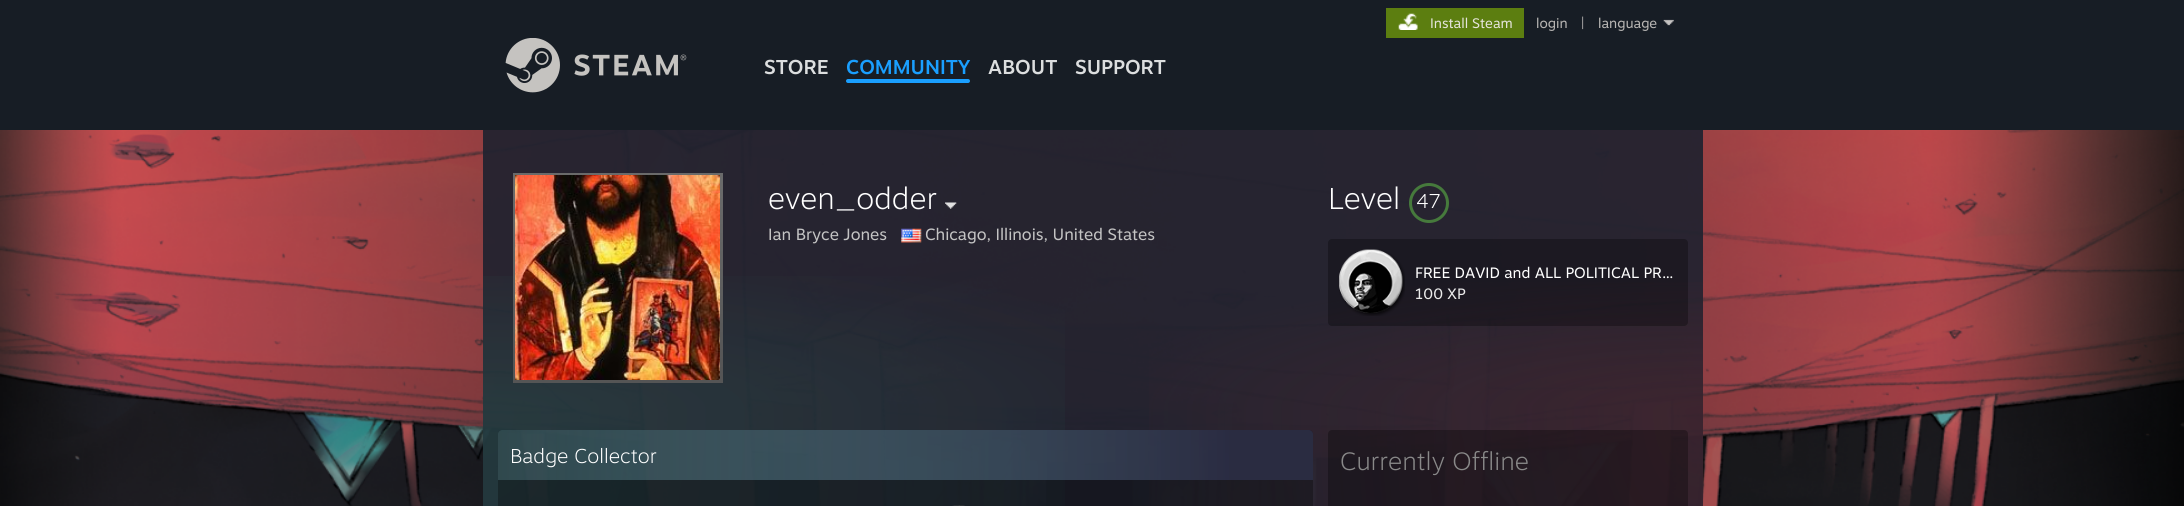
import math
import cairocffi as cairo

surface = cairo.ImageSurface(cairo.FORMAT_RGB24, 2184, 506)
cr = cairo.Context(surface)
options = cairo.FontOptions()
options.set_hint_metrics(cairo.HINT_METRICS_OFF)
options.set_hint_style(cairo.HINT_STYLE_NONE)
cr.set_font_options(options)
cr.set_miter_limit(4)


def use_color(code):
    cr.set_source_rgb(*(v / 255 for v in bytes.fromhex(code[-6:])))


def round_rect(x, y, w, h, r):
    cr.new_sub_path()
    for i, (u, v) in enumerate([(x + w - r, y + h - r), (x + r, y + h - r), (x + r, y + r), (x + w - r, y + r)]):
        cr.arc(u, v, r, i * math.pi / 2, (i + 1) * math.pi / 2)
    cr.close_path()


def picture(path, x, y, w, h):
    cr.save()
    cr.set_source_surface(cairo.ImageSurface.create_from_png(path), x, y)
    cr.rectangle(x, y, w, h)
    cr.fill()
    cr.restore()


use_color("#171d25")
cr.paint()
use_color("#5c7e10")
cr.rectangle(1386, 8, 138, 30)
cr.fill()
picture("img1.png", 1398, 13, 20, 17)
cr.select_font_face("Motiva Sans")
cr.set_font_size(13.75)
use_color("#e5e4dc")
cr.move_to(1430, 28)
cr.show_text("Install Steam")
use_color("#b8b6b4")
cr.move_to(1536, 28)
cr.show_text("login")
cr.move_to(1581, 28)
cr.show_text("|")
cr.move_to(1598, 28)
cr.show_text("language")
picture("img2.png", 1663, 19, 11, 7)
picture("img3.png", 505, 38, 182, 55)
cr.select_font_face("Motiva Sans Medium")
cr.set_font_size(20)
use_color("#dcdedf")
cr.move_to(764, 74)
cr.show_text("STORE")
use_color("#1a9fff")
cr.move_to(846, 74)
cr.show_text("COMMUNITY")
round_rect(846, 79, 124, 4, 2)
cr.fill()
use_color("#dcdedf")
cr.move_to(988, 74)
cr.show_text("ABOUT")
cr.move_to(1075, 74)
cr.show_text("SUPPORT")
picture("img4.png", 0, 130, 2184, 376)
cr.set_source_rgba(0.133, 0.137, 0.188, 0.93)
cr.rectangle(483, 130, 1220, 280)
cr.fill()
gradient = cairo.RadialGradient(0, 0, 0, 0, 0, 1)
gradient.set_matrix(cairo.Matrix(1 / 1725, 0, 0, 1 / 396, -1 * 483 / 1725, -1 * 410 / 396))
gradient.add_color_stop_rgba(0, 0.196, 1, 0.757, 0.1)
gradient.add_color_stop_rgba(0.43, 0.196, 1, 0.757, 0)
cr.set_source(gradient)
cr.rectangle(483, 276, 582, 134)
cr.fill()
gradient = cairo.RadialGradient(0, 0, 0, 0, 0, 1)
gradient.set_matrix(cairo.Matrix(1 / 1220, 0, 0, 1 / 280, -1 * 1703 / 1220, -1 * 410 / 280))
gradient.add_color_stop_rgba(0, 0.427, 0.149, 0.173, 0.3)
gradient.add_color_stop_rgba(0.51, 0.427, 0.149, 0.173, 0)
cr.set_source(gradient)
cr.rectangle(1149, 282, 554, 128)
cr.fill()
gradient = cairo.LinearGradient(618, 173, 618, 383)
gradient.add_color_stop_rgba(0.05, 0.416, 0.416, 0.416, 1)
gradient.add_color_stop_rgba(0.95, 0.333, 0.333, 0.333, 1)
cr.set_source(gradient)
cr.rectangle(513, 173, 210, 210)
cr.fill()
picture("img5.png", 515, 175, 205, 205)
cr.select_font_face("Motiva Sans Thin")
cr.set_font_size(30)
use_color("#ffffff")
cr.move_to(768, 209)
cr.show_text("even_odder")
picture("img6.png", 945, 202, 12, 7)
cr.select_font_face("Motiva Sans")
cr.set_font_size(16.25)
use_color("#c4c4c4")
cr.move_to(768, 240)
cr.show_text("Ian Bryce Jones")
picture("img7.png", 901, 228, 21, 15)
cr.move_to(925, 240)
cr.show_text("Chicago, Illinois, United States")
cr.select_font_face("Motiva Sans Thin")
cr.set_font_size(30)
use_color("#ffffff")
cr.move_to(1328, 209)
cr.show_text("Level")
cr.new_path()
cr.arc(1429, 203, 18.5, 0, 2 * math.pi)
use_color("#467a3c")
cr.set_line_width(3)
cr.stroke()
cr.set_font_size(20)
use_color("#ffffff")
cr.move_to(1416, 208)
cr.show_text("47")
cr.set_source_rgba(0, 0, 0, 0.3)
round_rect(1328, 239, 360, 87, 4)
cr.fill()
picture("img8.png", 1339, 249, 66, 67)
cr.select_font_face("Motiva Sans")
cr.set_font_size(15)
use_color("#ffffff")
cr.move_to(1415, 278)
cr.show_text("FREE DAVID and ALL POLITICAL PR…")
use_color("#ebebeb")
cr.move_to(1415, 299)
cr.show_text("100 XP")
cr.set_source_rgba(0.133, 0.137, 0.188, 0.93)
cr.rectangle(483, 410, 1220, 96)
cr.fill()
gradient = cairo.RadialGradient(0, 0, 0, 0, 0, 1)
gradient.set_matrix(cairo.Matrix(1 / 1725, 0, 0, 1 / 2708, -1 * 483 / 1725, -1 * 410 / 2708))
gradient.add_color_stop_rgba(0, 0.196, 1, 0.757, 0.1)
gradient.add_color_stop_rgba(0.43, 0.196, 1, 0.757, 0)
cr.set_source(gradient)
cr.rectangle(483, 410, 582, 96)
cr.fill()
gradient = cairo.RadialGradient(0, 0, 0, 0, 0, 1)
gradient.set_matrix(cairo.Matrix(1 / 1220, 0, 0, 1 / 1915, -1 * 1703 / 1220, -1 * 410 / 1915))
gradient.add_color_stop_rgba(0, 0.427, 0.149, 0.173, 0.3)
gradient.add_color_stop_rgba(0.51, 0.427, 0.149, 0.173, 0)
cr.set_source(gradient)
cr.rectangle(1149, 410, 554, 96)
cr.fill()
cr.set_source_rgba(0, 0, 0, 0.3)
round_rect(498, 430, 815, 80, 4)
cr.fill()
gradient = cairo.LinearGradient(498, 455, 1313, 455)
gradient.add_color_stop_rgba(0, 0.451, 0.678, 0.722, 0.25)
gradient.add_color_stop_rgba(0.9, 0.169, 0.176, 0.267, 0.93)
cr.set_source(gradient)
cr.new_path()
cr.move_to(502, 430)
cr.line_to(1309, 430)
cr.curve_to(1311, 430, 1313, 432, 1313, 434)
cr.line_to(1313, 480)
cr.line_to(498, 480)
cr.line_to(498, 434)
cr.curve_to(498, 432, 500, 430, 502, 430)
cr.close_path()
cr.fill()
cr.select_font_face("Motiva Sans Thin")
cr.set_font_size(20)
use_color("#ffffff")
cr.move_to(510, 463)
cr.show_text("Badge Collector")
picture("img9.png", 952, 505, 13, 1)
cr.set_source_rgba(0, 0, 0, 0.3)
round_rect(1328, 430, 360, 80, 4)
cr.fill()
cr.set_font_size(25)
use_color("#898989")
cr.move_to(1340, 470)
cr.show_text("Currently Offline")
surface.write_to_png("result.png")
